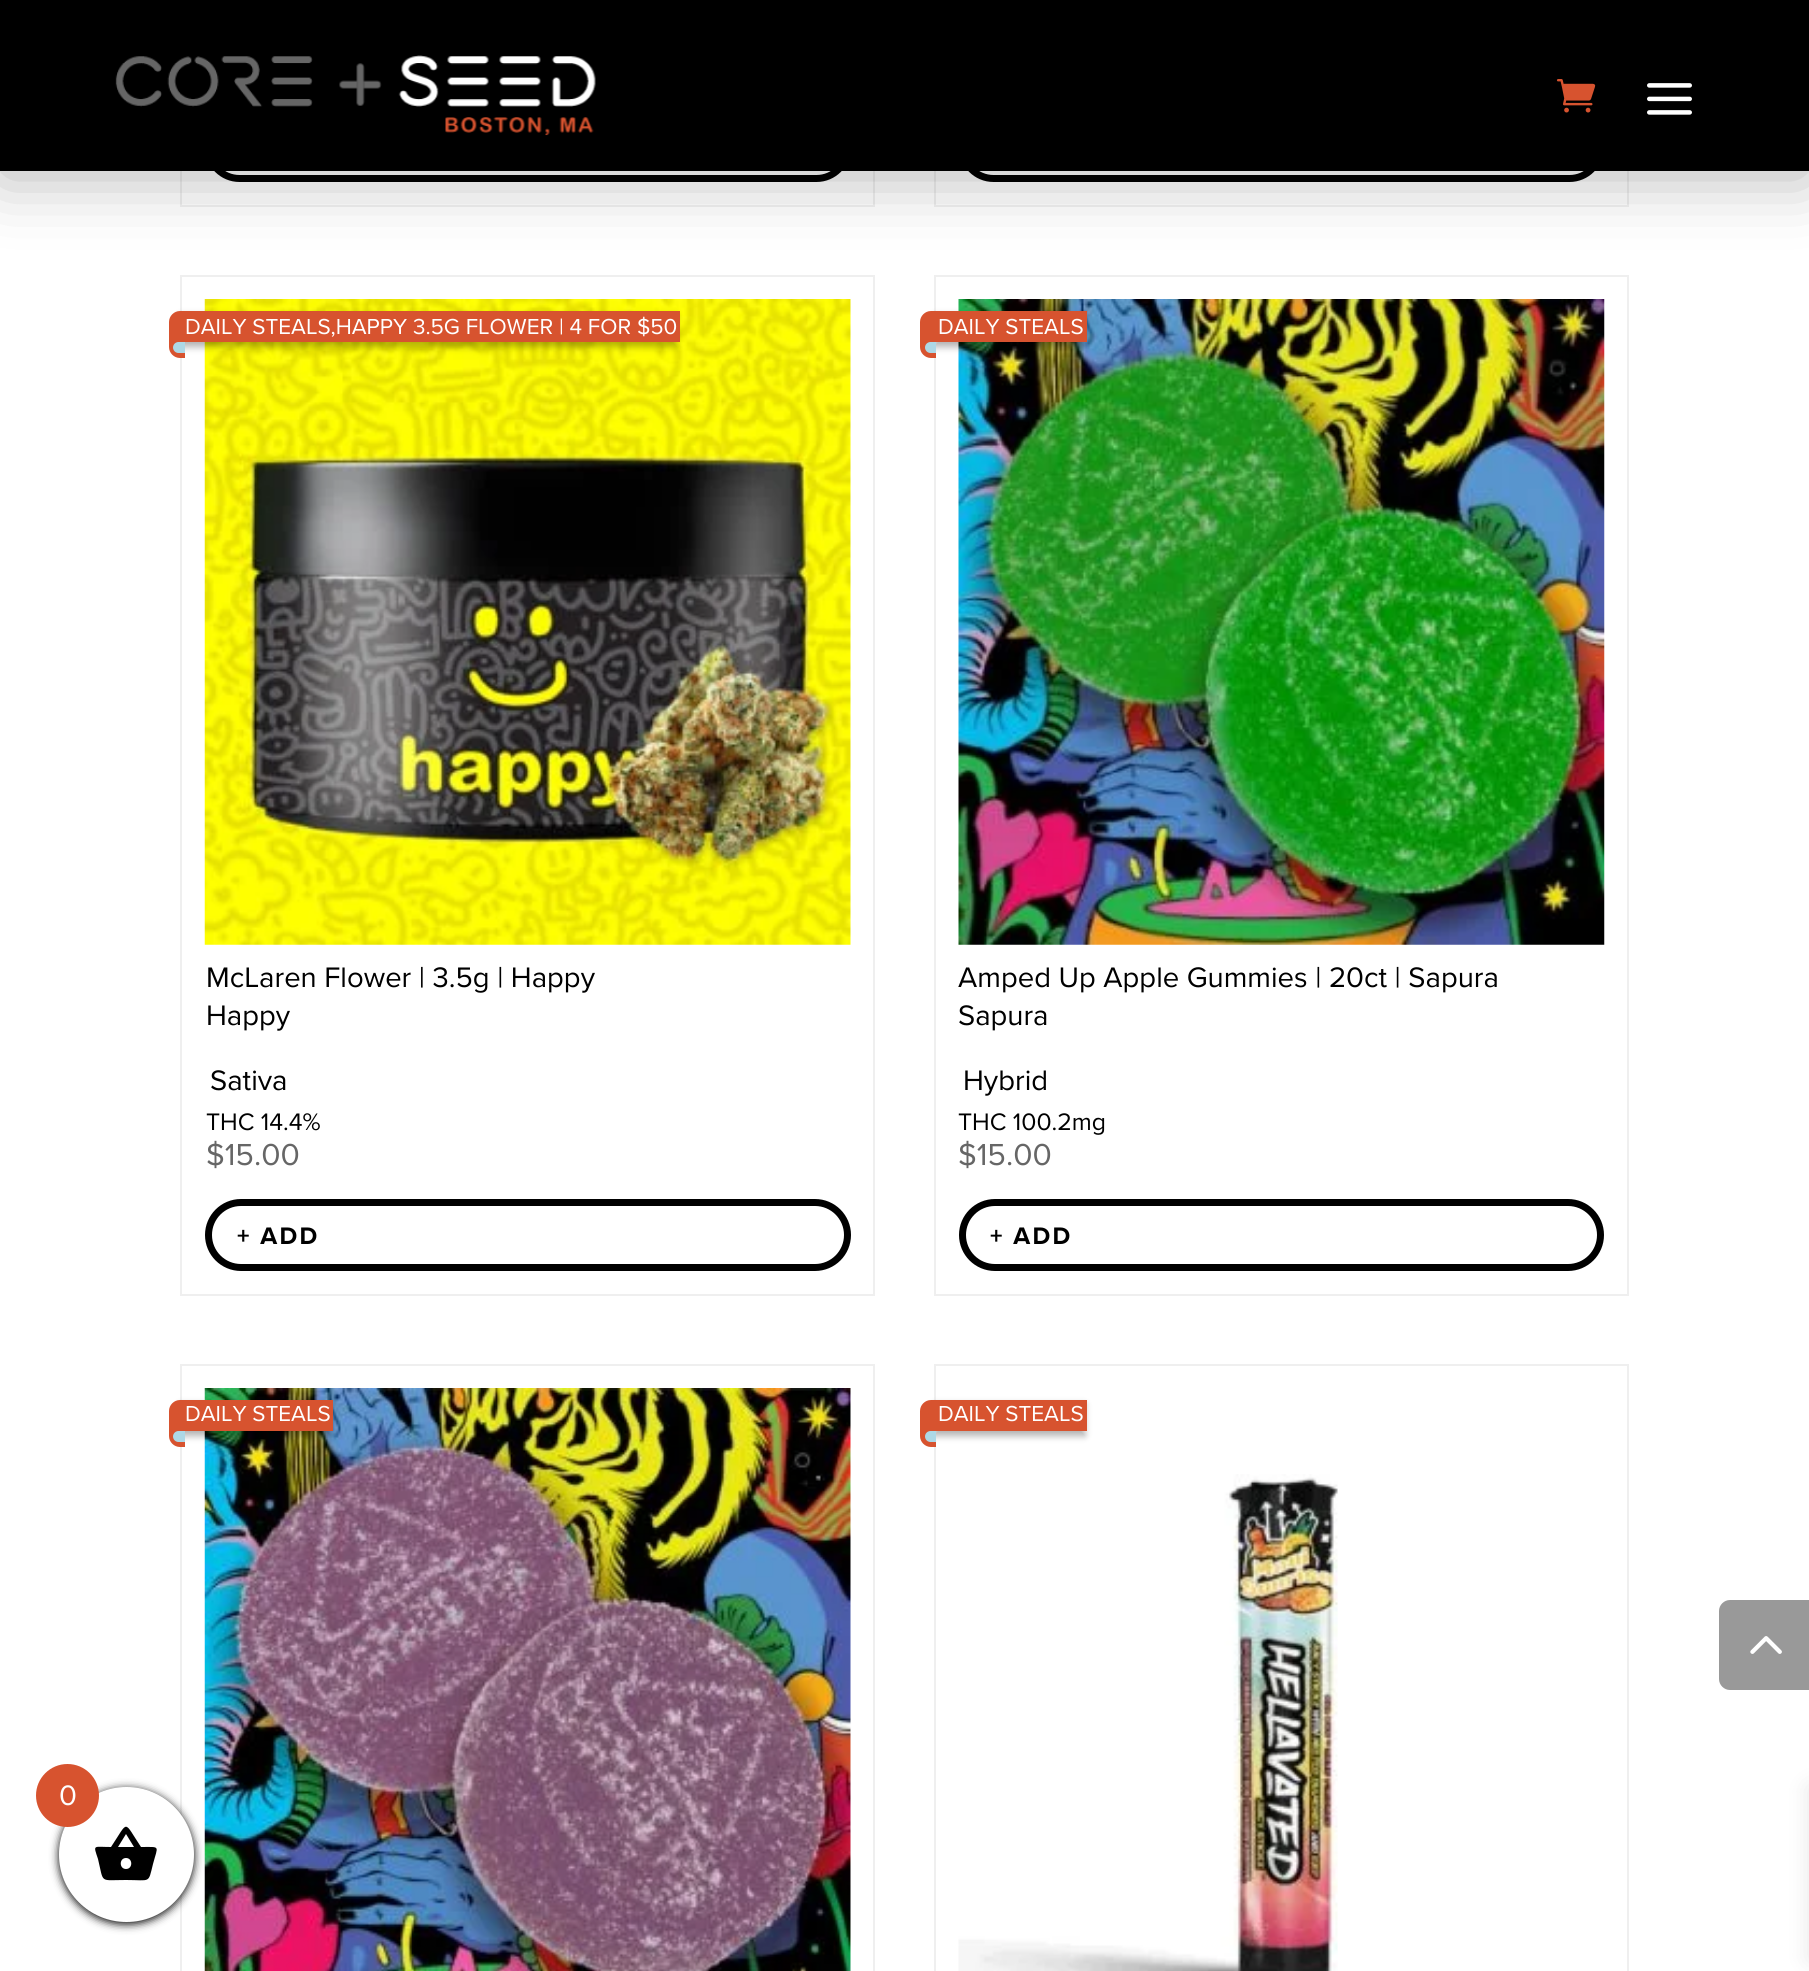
import math
import cairocffi as cairo

surface = cairo.ImageSurface(cairo.FORMAT_RGB24, 1809, 1971)
cr = cairo.Context(surface)
options = cairo.FontOptions()
options.set_hint_metrics(cairo.HINT_METRICS_OFF)
options.set_hint_style(cairo.HINT_STYLE_NONE)
cr.set_font_options(options)
cr.set_miter_limit(4)


def use_color(code):
    cr.set_source_rgb(*(v / 255 for v in bytes.fromhex(code[-6:])))


def spaced_text(x, y, s, letter, word):
    cr.move_to(x, y)
    for ch in s:
        cr.show_text(ch)
        cr.rel_move_to(letter + word * (ch == ' '), 0)


def round_rect(x, y, w, h, r):
    cr.new_sub_path()
    for i, (u, v) in enumerate([(x + w - r, y + h - r), (x + r, y + h - r), (x + r, y + r), (x + w - r, y + r)]):
        cr.arc(u, v, r, i * math.pi / 2, (i + 1) * math.pi / 2)
    cr.close_path()


def shadow(x, y, w, h, r, blur, alpha):
    cr.push_group_with_content(cairo.CONTENT_ALPHA)
    cr.set_operator(cairo.OPERATOR_SOURCE)
    for i in range(15, -16, -2):
        e = blur * i / 6
        if min(w, h) + 2 * e > 0:
            cr.set_source_rgba(0, 0, 0, alpha * math.erfc((i - 1) / 8.5) / 2)
            round_rect(x - e, y - e, w + 2 * e, h + 2 * e, max(0, min(r + e + blur * .6, min(w, h) / 2 + e)))
            cr.fill()
    cr.mask(cr.pop_group())


def picture(path, x, y, w, h):
    cr.save()
    cr.set_source_surface(cairo.ImageSurface.create_from_png(path), x, y)
    cr.rectangle(x, y, w, h)
    cr.fill()
    cr.restore()


use_color("#ffffff")
cr.paint()
cr.rectangle(181, -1, 693, 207)
use_color("#efefef")
cr.stroke()
round_rect(208.5, 116.5, 639, 62, 31)
use_color("#000000")
cr.set_line_width(7)
cr.stroke()
cr.rectangle(935, -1, 693, 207)
use_color("#efefef")
cr.set_line_width(2)
cr.stroke()
round_rect(962.5, 116.5, 638, 62, 31)
use_color("#000000")
cr.set_line_width(7)
cr.stroke()
cr.rectangle(181, 276, 693, 1019)
use_color("#efefef")
cr.set_line_width(2)
cr.stroke()
cr.rectangle(935, 276, 693, 1019)
cr.stroke()
use_color("#000000")
shadow(0, 5, 1809, 171, 0, 34, 0.3)
use_color("#000000")
cr.rectangle(0, 0, 1809, 171)
cr.fill()
picture("img1.png", 115, 56, 198, 51)
picture("img2.png", 339, 63, 43, 43)
picture("img3.png", 398, 55, 198, 81)
picture("img4.png", 1556, 79, 40, 34)
picture("img5.png", 1647, 83, 45, 32)
picture("img6.png", 204, 299, 647, 646)
use_color("#000000")
shadow(180, 315, 497, 32, 0, 3.5, 0.3)
use_color("#d7532f")
cr.rectangle(185, 311, 495, 31)
cr.fill()
cr.new_path()
cr.move_to(180, 311)
cr.line_to(185, 311)
cr.line_to(185, 358)
cr.line_to(180, 358)
cr.curve_to(174, 358, 169, 353, 169, 347)
cr.line_to(169, 322)
cr.curve_to(169, 316, 174, 311, 180, 311)
cr.close_path()
cr.fill()
cr.select_font_face("Proxima Nova")
cr.set_font_size(22.5)
use_color("#ffffff")
cr.move_to(185, 334)
cr.show_text("DAILY STEALS,HAPPY 3.5G FLOWER | 4 FOR $50")
use_color("#add8e6")
cr.new_path()
cr.move_to(178.5, 342)
cr.line_to(185, 342)
cr.line_to(185, 353)
cr.line_to(178.5, 353)
cr.curve_to(175.5, 353, 173, 350.5, 173, 347.5)
cr.curve_to(173, 344.5, 175.5, 342, 178.5, 342)
cr.close_path()
cr.fill()
cr.set_font_size(29.25)
use_color("#000000")
cr.move_to(206, 987)
cr.show_text("McLaren Flower | 3.5g | Happy")
cr.move_to(206, 1025)
cr.show_text("Happy")
cr.move_to(210, 1090)
cr.show_text("Sativa")
cr.set_font_size(24.75)
cr.move_to(206, 1130)
cr.show_text("THC 14.4%")
cr.set_font_size(31.5)
use_color("#666666")
cr.move_to(206, 1165)
cr.show_text("$15.00")
round_rect(208.5, 1202.5, 639, 65, 32.5)
use_color("#000000")
cr.set_line_width(7)
cr.stroke()
cr.select_font_face("Proxima Nova", cairo.FONT_SLANT_NORMAL, cairo.FONT_WEIGHT_BOLD)
cr.set_font_size(24.75)
spaced_text(237, 1244, "+ ADD", 2.25, 0)
picture("img7.png", 958, 299, 647, 646)
use_color("#000000")
shadow(934, 315, 151, 32, 0, 3.5, 0.3)
use_color("#d7532f")
cr.rectangle(936, 311, 151, 31)
cr.fill()
cr.new_path()
cr.move_to(931, 311)
cr.line_to(936, 311)
cr.line_to(936, 358)
cr.line_to(931, 358)
cr.curve_to(925, 358, 920, 353, 920, 347)
cr.line_to(920, 322)
cr.curve_to(920, 316, 925, 311, 931, 311)
cr.close_path()
cr.fill()
cr.select_font_face("Proxima Nova")
cr.set_font_size(22.5)
use_color("#ffffff")
cr.move_to(938, 334)
cr.show_text("DAILY STEALS")
use_color("#add8e6")
cr.new_path()
cr.move_to(930.5, 342)
cr.line_to(936, 342)
cr.line_to(936, 353)
cr.line_to(930.5, 353)
cr.curve_to(927.5, 353, 925, 350.5, 925, 347.5)
cr.curve_to(925, 344.5, 927.5, 342, 930.5, 342)
cr.close_path()
cr.fill()
cr.set_font_size(29.25)
use_color("#000000")
cr.move_to(958, 987)
cr.show_text("Amped Up Apple Gummies | 20ct | Sapura")
cr.move_to(958, 1025)
cr.show_text("Sapura")
cr.move_to(963, 1090)
cr.show_text("Hybrid")
cr.set_font_size(24.75)
cr.move_to(958, 1130)
cr.show_text("THC 100.2mg")
cr.set_font_size(31.5)
use_color("#666666")
cr.move_to(958, 1165)
cr.show_text("$15.00")
round_rect(962.5, 1202.5, 638, 65, 32.5)
use_color("#000000")
cr.stroke()
cr.select_font_face("Proxima Nova", cairo.FONT_SLANT_NORMAL, cairo.FONT_WEIGHT_BOLD)
cr.set_font_size(24.75)
spaced_text(990, 1244, "+ ADD", 2.25, 0)
cr.rectangle(181, 1365, 693, 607)
use_color("#efefef")
cr.set_line_width(2)
cr.stroke()
picture("img8.png", 204, 1388, 647, 583)
use_color("#000000")
shadow(180, 1404, 151, 32, 0, 3.5, 0.3)
use_color("#d7532f")
cr.rectangle(185, 1400, 148, 31)
cr.fill()
cr.new_path()
cr.move_to(180, 1400)
cr.line_to(185, 1400)
cr.line_to(185, 1447)
cr.line_to(180, 1447)
cr.curve_to(174, 1447, 169, 1442, 169, 1436)
cr.line_to(169, 1411)
cr.curve_to(169, 1405, 174, 1400, 180, 1400)
cr.close_path()
cr.fill()
cr.select_font_face("Proxima Nova")
cr.set_font_size(22.5)
use_color("#ffffff")
cr.move_to(185, 1421)
cr.show_text("DAILY STEALS")
use_color("#add8e6")
cr.new_path()
cr.move_to(178.5, 1431)
cr.line_to(185, 1431)
cr.line_to(185, 1442)
cr.line_to(178.5, 1442)
cr.curve_to(175.5, 1442, 173, 1439.5, 173, 1436.5)
cr.curve_to(173, 1433.5, 175.5, 1431, 178.5, 1431)
cr.close_path()
cr.fill()
cr.rectangle(935, 1365, 693, 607)
use_color("#efefef")
cr.stroke()
use_color("#000000")
shadow(934, 1404, 151, 32, 0, 3.5, 0.3)
use_color("#d7532f")
cr.rectangle(936, 1400, 151, 31)
cr.fill()
cr.new_path()
cr.move_to(931, 1400)
cr.line_to(936, 1400)
cr.line_to(936, 1447)
cr.line_to(931, 1447)
cr.curve_to(925, 1447, 920, 1442, 920, 1436)
cr.line_to(920, 1411)
cr.curve_to(920, 1405, 925, 1400, 931, 1400)
cr.close_path()
cr.fill()
use_color("#ffffff")
cr.move_to(938, 1421)
cr.show_text("DAILY STEALS")
use_color("#add8e6")
cr.new_path()
cr.move_to(930.5, 1431)
cr.line_to(936, 1431)
cr.line_to(936, 1442)
cr.line_to(930.5, 1442)
cr.curve_to(927.5, 1442, 925, 1439.5, 925, 1436.5)
cr.curve_to(925, 1433.5, 927.5, 1431, 930.5, 1431)
cr.close_path()
cr.fill()
picture("img9.png", 958, 1474, 380, 497)
use_color("#999999")
cr.new_path()
cr.move_to(1730, 1600)
cr.line_to(1809, 1600)
cr.line_to(1809, 1690)
cr.line_to(1730, 1690)
cr.curve_to(1724, 1690, 1719, 1685, 1719, 1679)
cr.line_to(1719, 1611)
cr.curve_to(1719, 1605, 1724, 1600, 1730, 1600)
cr.close_path()
cr.fill()
picture("img10.png", 1750, 1636, 32, 18)
use_color("#000000")
shadow(59, 1789, 135, 135, 67.5, 4.5, 1)
use_color("#ffffff")
cr.arc(126.5, 1854.5, 67.5, 0, 2 * math.pi)
cr.fill()
use_color("#000000")
cr.new_path()
cr.move_to(126, 1869)
cr.curve_to(133, 1869, 133, 1858, 126, 1858)
cr.curve_to(119, 1858, 119, 1869, 126, 1869)
cr.close_path()
cr.move_to(118, 1847)
cr.line_to(134, 1847)
cr.line_to(126, 1834)
cr.close_path()
cr.move_to(141, 1847)
cr.curve_to(161, 1847, 158, 1845, 153, 1864)
cr.curve_to(148, 1884, 151, 1880, 126, 1880)
cr.curve_to(99, 1880, 104, 1884, 98, 1859)
cr.curve_to(93, 1844, 93, 1847, 111, 1847)
cr.curve_to(129, 1820, 123, 1820, 141, 1847)
cr.close_path()
cr.fill()
use_color("#d7532f")
cr.arc(67.5, 1795.5, 31.5, 0, 2 * math.pi)
cr.fill()
cr.set_font_size(29.25)
use_color("#ffffff")
cr.move_to(59, 1805)
cr.show_text("0")
use_color("#000000")
shadow(1809, 1787, 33, 173, 0, 11, 0.1)
surface.write_to_png("result.png")
